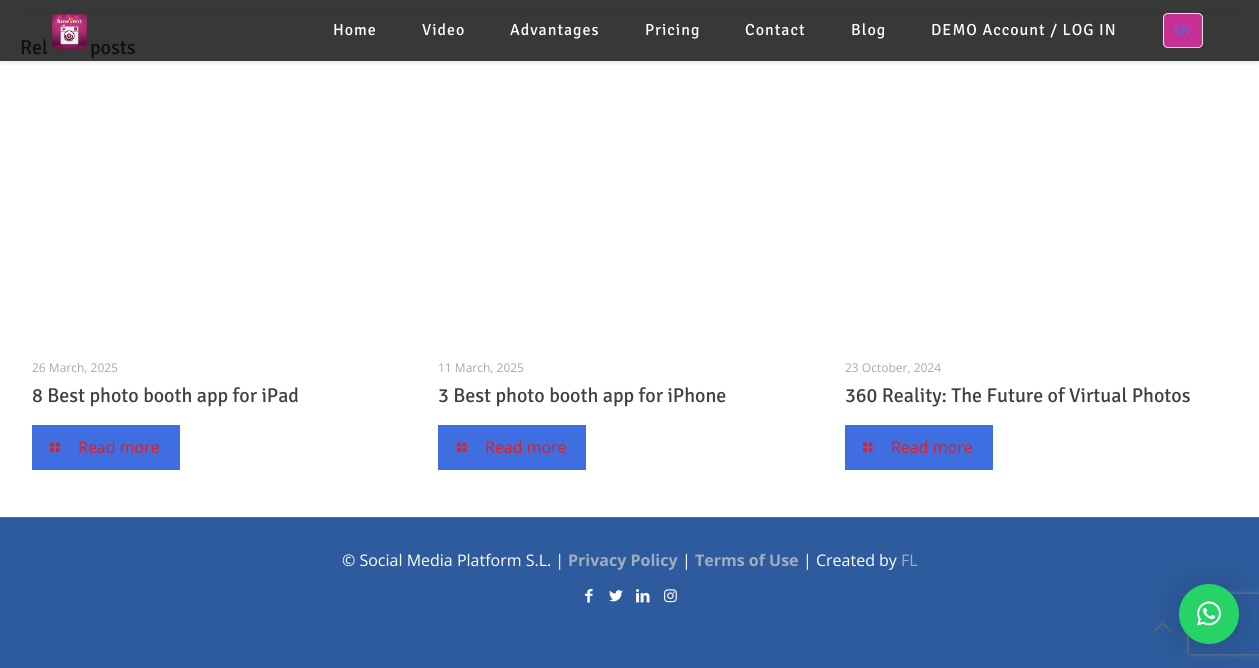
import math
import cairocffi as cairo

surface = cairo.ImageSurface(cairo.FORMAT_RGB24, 1259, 668)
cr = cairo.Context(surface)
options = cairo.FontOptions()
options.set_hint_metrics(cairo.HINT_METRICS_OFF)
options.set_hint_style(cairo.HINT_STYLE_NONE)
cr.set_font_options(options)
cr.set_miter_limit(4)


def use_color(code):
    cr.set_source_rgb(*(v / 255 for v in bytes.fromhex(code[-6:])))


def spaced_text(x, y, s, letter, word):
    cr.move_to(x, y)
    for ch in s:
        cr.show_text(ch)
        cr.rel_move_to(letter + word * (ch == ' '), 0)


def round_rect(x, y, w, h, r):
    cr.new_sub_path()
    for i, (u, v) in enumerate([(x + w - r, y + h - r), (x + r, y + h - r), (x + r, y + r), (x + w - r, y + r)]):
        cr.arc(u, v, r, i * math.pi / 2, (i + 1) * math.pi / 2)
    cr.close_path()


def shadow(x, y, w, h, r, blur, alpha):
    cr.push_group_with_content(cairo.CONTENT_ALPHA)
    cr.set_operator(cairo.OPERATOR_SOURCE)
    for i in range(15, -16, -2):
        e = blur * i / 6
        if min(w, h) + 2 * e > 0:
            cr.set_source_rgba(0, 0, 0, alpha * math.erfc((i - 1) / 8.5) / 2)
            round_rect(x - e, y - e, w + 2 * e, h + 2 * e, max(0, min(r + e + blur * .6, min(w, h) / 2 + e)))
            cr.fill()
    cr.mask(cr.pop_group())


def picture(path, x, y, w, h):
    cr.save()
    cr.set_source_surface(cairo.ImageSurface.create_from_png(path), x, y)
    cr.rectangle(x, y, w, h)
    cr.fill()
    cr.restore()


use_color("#ffffff")
cr.paint()
use_color("#383838")
cr.rectangle(0, 0, 1259, 61)
cr.fill()
use_color("#343434")
cr.rectangle(20, 13, 1220, 1)
cr.fill()
cr.save()
cr.rectangle(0, 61, 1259, 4)
cr.clip()
use_color("#080808")
shadow(0, 2, 1259, 61, 0, 2.5, 0.1)
cr.restore()
picture("img1.png", 52, 14, 35, 35)
cr.select_font_face("Signika")
cr.set_font_size(16)
use_color("#ffffff")
spaced_text(333, 35, "Home", 1, 0)
spaced_text(422, 35, "Video", 1, 0)
spaced_text(510, 35, "Advantages", 1, 0)
spaced_text(645, 35, "Pricing", 1, 0)
spaced_text(745, 35, "Contact", 1, 0)
spaced_text(851, 35, "Blog", 1, 0)
spaced_text(931, 35, "DEMO Account / LOG IN", 1, 0)
cr.set_source_rgba(0.792, 0.184, 0.584, 0.97)
round_rect(1163, 13, 40, 35, 5)
cr.fill()
round_rect(1163.5, 13.5, 39, 34, 4.5)
cr.set_source_rgba(0.91, 0.91, 0.91, 0.97)
cr.set_line_width(1)
cr.stroke()
cr.select_font_face("Open Sans")
cr.set_font_size(13)
use_color("#4472e0")
cr.move_to(1174, 35)
cr.show_text("EN")
cr.select_font_face("Signika")
cr.set_font_size(20)
use_color("#0e0e0e")
cr.move_to(20, 54)
cr.show_text("Rel")
cr.move_to(90, 54)
cr.show_text("posts")
cr.select_font_face("Open Sans")
cr.set_font_size(12)
use_color("#a8a8a8")
cr.move_to(32, 372)
cr.show_text("26 March, 2025")
cr.select_font_face("Signika")
cr.set_font_size(20)
use_color("#404040")
cr.move_to(32, 402)
cr.show_text("8 Best photo booth app for iPad")
use_color("#3e6edf")
cr.rectangle(32, 425, 148, 45)
cr.fill()
picture("img2.png", 50, 442, 10, 11)
cr.select_font_face("Open Sans")
cr.set_font_size(16)
use_color("#e41d1d")
cr.move_to(78, 453)
cr.show_text("Read more")
cr.set_font_size(12)
use_color("#a8a8a8")
cr.move_to(438, 372)
cr.show_text("11 March, 2025")
cr.select_font_face("Signika")
cr.set_font_size(20)
use_color("#404040")
cr.move_to(438, 402)
cr.show_text("3 Best photo booth app for iPhone")
use_color("#3e6edf")
cr.rectangle(438, 425, 148, 45)
cr.fill()
picture("img2.png", 457, 442, 10, 11)
cr.select_font_face("Open Sans")
cr.set_font_size(16)
use_color("#e41d1d")
cr.move_to(485, 453)
cr.show_text("Read more")
cr.set_font_size(12)
use_color("#a8a8a8")
cr.move_to(845, 372)
cr.show_text("23 October, 2024")
cr.select_font_face("Signika")
cr.set_font_size(20)
use_color("#404040")
cr.move_to(845, 402)
cr.show_text("360 Reality: The Future of Virtual Photos")
use_color("#3e6edf")
cr.rectangle(845, 425, 148, 45)
cr.fill()
picture("img2.png", 863, 442, 10, 11)
cr.select_font_face("Open Sans")
cr.set_font_size(16)
use_color("#e41d1d")
cr.move_to(891, 453)
cr.show_text("Read more")
use_color("#2d5b9d")
cr.rectangle(0, 518, 1259, 150)
cr.fill()
use_color("#426ba7")
cr.rectangle(0, 517, 1259, 1)
cr.fill()
use_color("#ffffff")
cr.move_to(342, 566)
cr.show_text("© Social Media Platform S.L. |")
cr.select_font_face("Open Sans", cairo.FONT_SLANT_NORMAL, cairo.FONT_WEIGHT_BOLD)
use_color("#a0adc1")
cr.move_to(568, 566)
cr.show_text("Privacy Policy")
cr.select_font_face("Open Sans")
use_color("#ffffff")
cr.move_to(682, 566)
cr.show_text("|")
cr.select_font_face("Open Sans", cairo.FONT_SLANT_NORMAL, cairo.FONT_WEIGHT_BOLD)
use_color("#a0adc1")
cr.move_to(695, 566)
cr.show_text("Terms of Use")
cr.select_font_face("Open Sans")
use_color("#ffffff")
cr.move_to(803, 566)
cr.show_text("| Created by")
use_color("#a0adc1")
cr.move_to(901, 566)
cr.show_text("FL")
picture("img3.png", 585, 589, 8, 14)
picture("img4.png", 609, 590, 14, 12)
picture("img5.png", 636, 589, 14, 14)
picture("img6.png", 664, 589, 13, 14)
picture("img8.png", 1154, 622, 18, 10)
use_color("#000000")
shadow(1179, 586, 60, 60, 30, 16, 0.16)
cr.save()
cr.set_fill_rule(cairo.FILL_RULE_EVEN_ODD)
cr.new_path()
cr.move_to(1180, 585)
cr.line_to(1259, 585)
cr.line_to(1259, 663)
cr.line_to(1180, 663)
cr.close_path()
cr.move_to(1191, 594)
cr.line_to(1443, 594)
cr.curve_to(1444, 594, 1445, 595, 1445, 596)
cr.line_to(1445, 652)
cr.curve_to(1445, 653, 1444, 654, 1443, 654)
cr.line_to(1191, 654)
cr.curve_to(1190, 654, 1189, 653, 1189, 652)
cr.line_to(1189, 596)
cr.curve_to(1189, 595, 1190, 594, 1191, 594)
cr.close_path()
cr.clip()
use_color("#808080")
shadow(1189, 594, 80, 60, 2, 2.5, 1)
cr.restore()
use_color("#25d366")
cr.arc(1209, 614, 30, 0, 2 * math.pi)
cr.fill()
picture("img7.png", 1197, 601, 24, 25)
surface.write_to_png("result.png")
